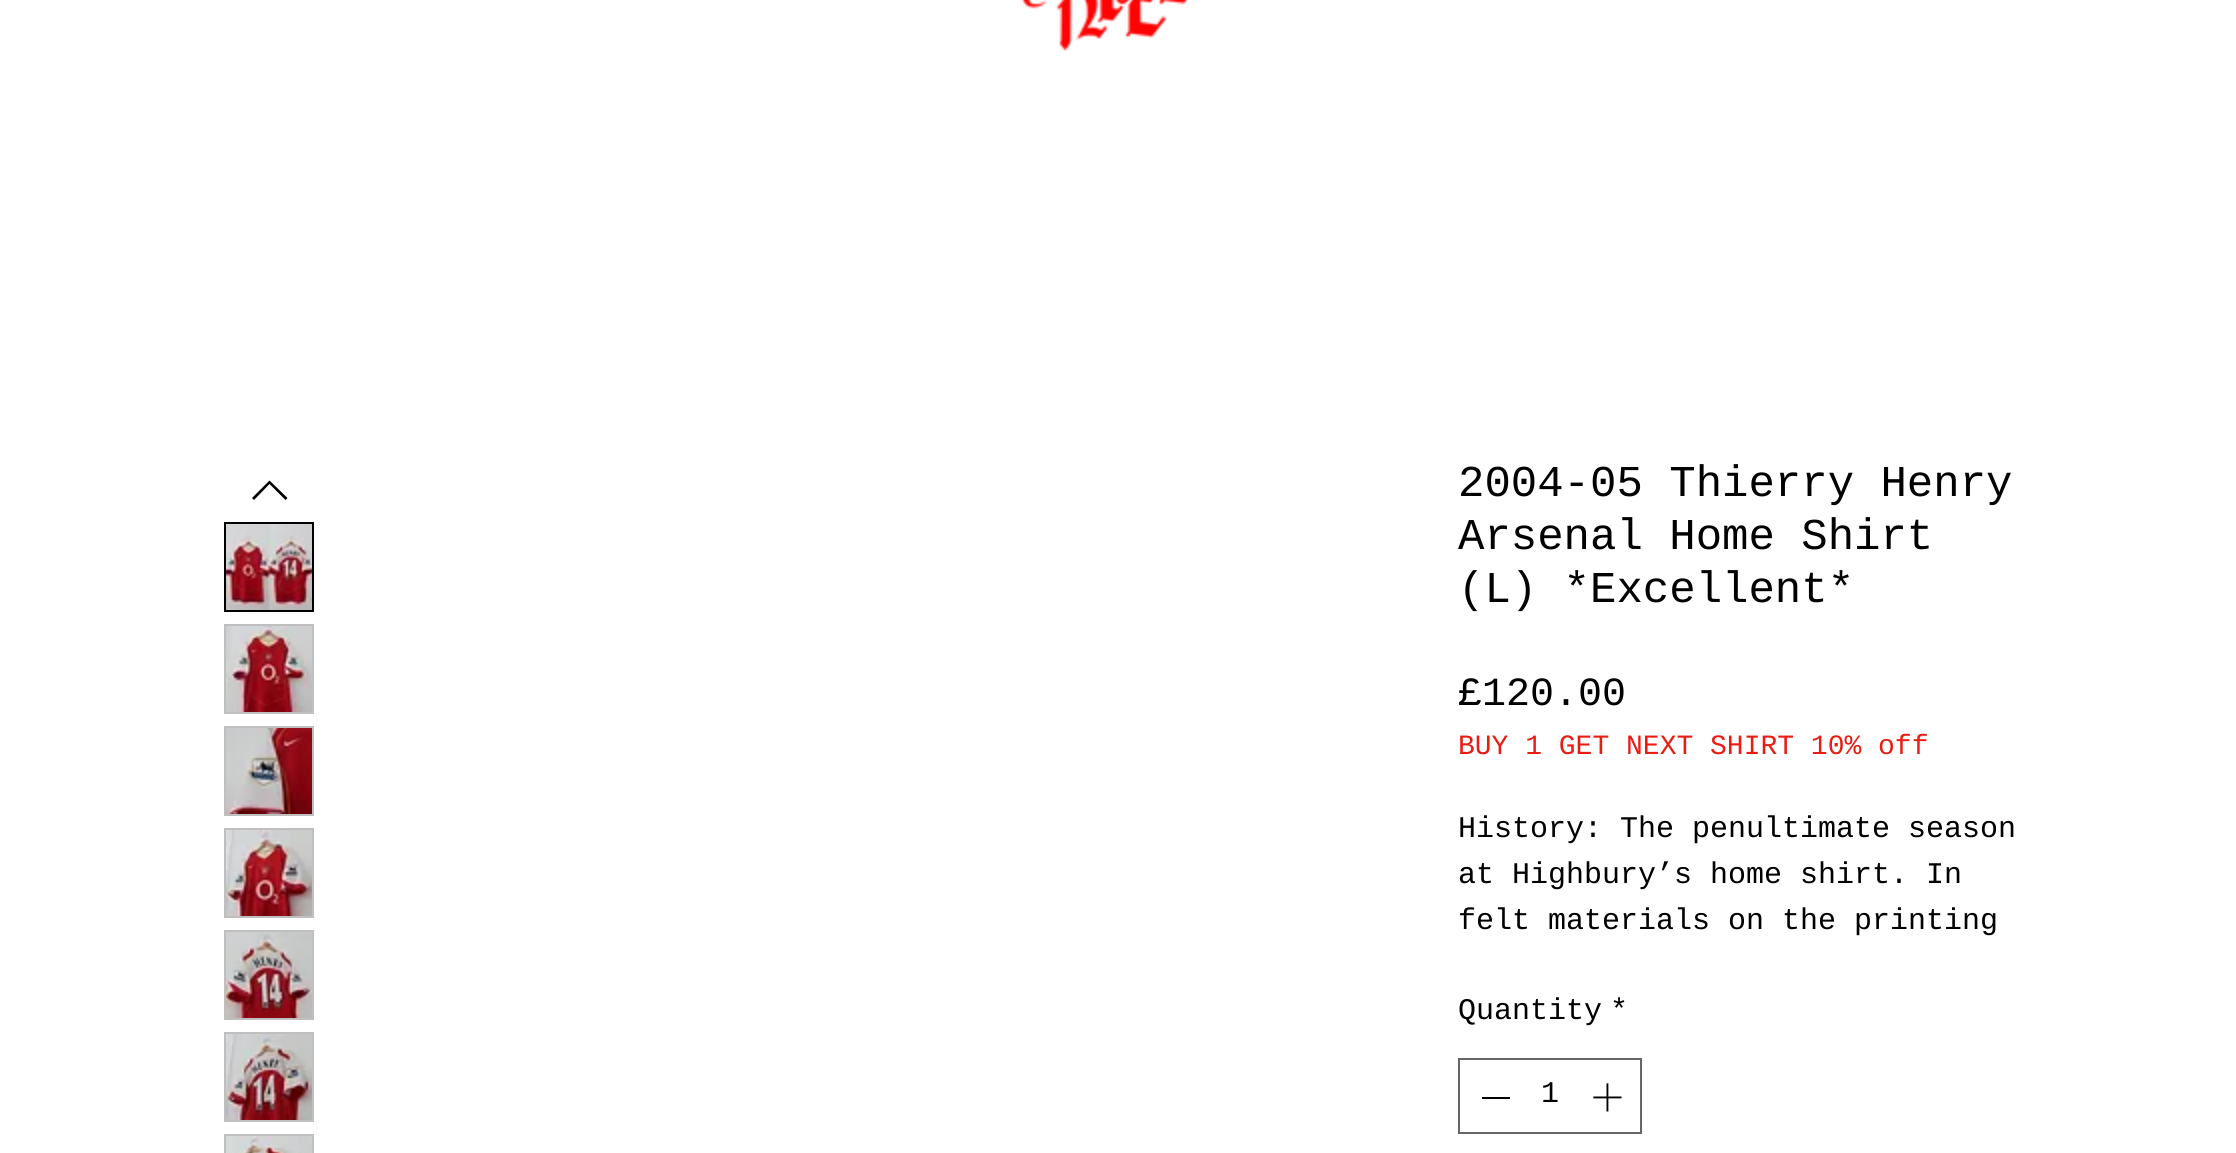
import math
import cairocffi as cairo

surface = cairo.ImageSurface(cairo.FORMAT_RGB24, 2236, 1153)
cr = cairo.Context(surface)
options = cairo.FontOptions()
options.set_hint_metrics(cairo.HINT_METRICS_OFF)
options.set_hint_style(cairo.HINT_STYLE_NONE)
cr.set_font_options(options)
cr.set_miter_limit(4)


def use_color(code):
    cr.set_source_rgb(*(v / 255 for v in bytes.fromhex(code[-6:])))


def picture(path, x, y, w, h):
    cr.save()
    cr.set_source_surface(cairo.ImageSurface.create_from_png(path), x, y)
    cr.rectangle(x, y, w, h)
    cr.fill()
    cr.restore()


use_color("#ffffff")
cr.paint()
picture("img1.png", 1021, 0, 168, 51)
use_color("#000000")
cr.set_fill_rule(cairo.FILL_RULE_EVEN_ODD)
cr.new_path()
cr.move_to(269.5, 480.5)
cr.line_to(287.5, 498)
cr.line_to(285.5, 500)
cr.line_to(269.5, 484)
cr.line_to(254, 500)
cr.line_to(252, 498)
cr.close_path()
cr.fill()
cr.rectangle(225, 523, 88, 88)
cr.stroke()
picture("img2.png", 226, 524, 86, 86)
use_color("#bfbfbf")
cr.rectangle(224, 624, 90, 90)
cr.fill()
picture("img3.png", 226, 626, 86, 86)
cr.rectangle(224, 726, 90, 90)
cr.fill()
picture("img4.png", 226, 728, 86, 86)
cr.rectangle(224, 828, 90, 90)
cr.fill()
picture("img5.png", 226, 830, 86, 86)
cr.rectangle(224, 930, 90, 90)
cr.fill()
picture("img6.png", 226, 932, 86, 86)
cr.rectangle(224, 1032, 90, 90)
cr.fill()
picture("img7.png", 226, 1034, 86, 86)
cr.rectangle(224, 1134, 90, 19)
cr.fill()
picture("img8.png", 226, 1136, 86, 17)
cr.select_font_face("Liberation Mono")
cr.set_font_size(44)
use_color("#000000")
cr.move_to(1458, 496)
cr.show_text("2004-05 Thierry Henry")
cr.move_to(1458, 549)
cr.show_text("Arsenal Home Shirt")
cr.move_to(1458, 602)
cr.show_text("(L) *Excellent*")
cr.set_font_size(40)
cr.move_to(1458, 705)
cr.show_text("£120.00")
cr.set_font_size(28)
use_color("#e71d13")
cr.move_to(1458, 754)
cr.show_text("BUY 1 GET NEXT SHIRT 10% off")
cr.set_font_size(30)
use_color("#000000")
cr.move_to(1458, 837)
cr.show_text("History: The penultimate season")
cr.move_to(1458, 883)
cr.show_text("at Highbury’s home shirt. In")
cr.move_to(1458, 929)
cr.show_text("felt materials on the printing")
cr.move_to(1458, 1019)
cr.show_text("Quantity")
cr.move_to(1610, 1019)
cr.show_text("*")
cr.rectangle(1459, 1059, 182, 74)
use_color("#666666")
cr.stroke()
use_color("#000000")
cr.rectangle(1482, 1097, 28, 2)
cr.fill()
cr.move_to(1541, 1102)
cr.show_text("1")
picture("img9.png", 1593, 1083, 29, 29)
surface.write_to_png("result.png")
